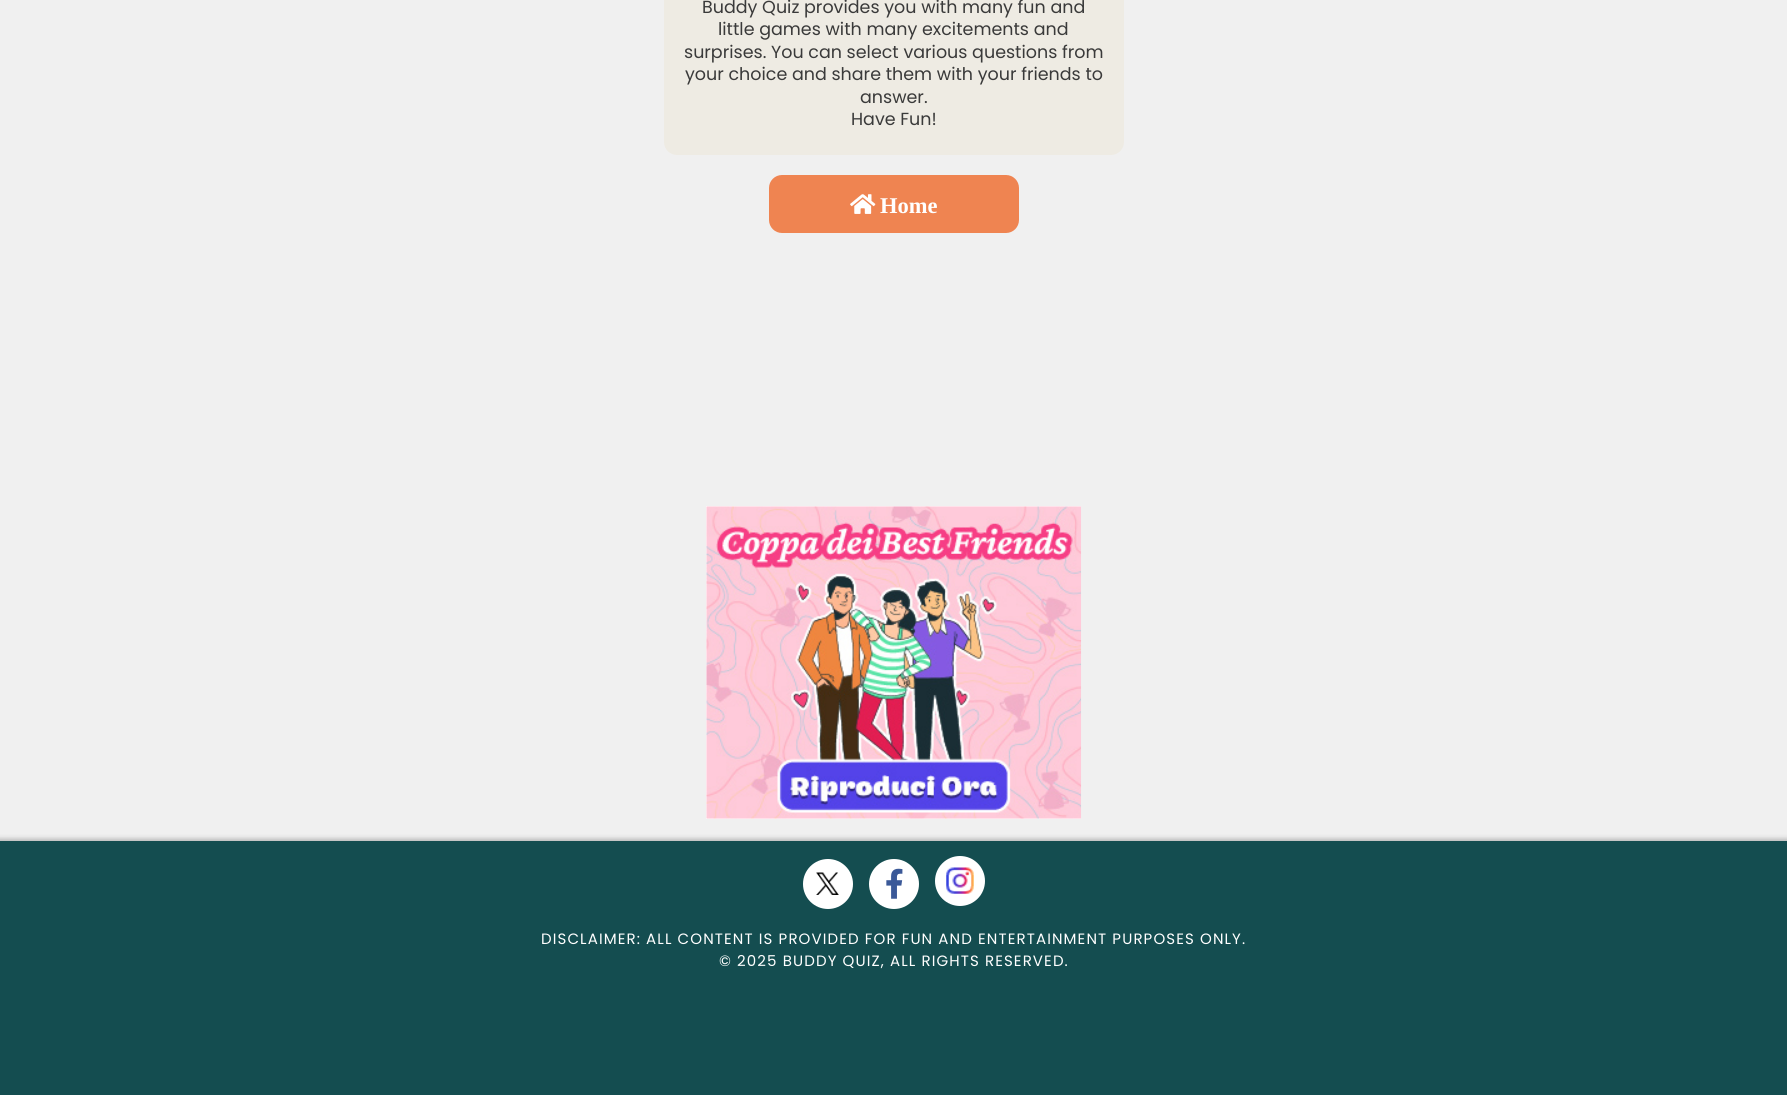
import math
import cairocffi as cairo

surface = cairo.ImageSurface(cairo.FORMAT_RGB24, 1787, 1095)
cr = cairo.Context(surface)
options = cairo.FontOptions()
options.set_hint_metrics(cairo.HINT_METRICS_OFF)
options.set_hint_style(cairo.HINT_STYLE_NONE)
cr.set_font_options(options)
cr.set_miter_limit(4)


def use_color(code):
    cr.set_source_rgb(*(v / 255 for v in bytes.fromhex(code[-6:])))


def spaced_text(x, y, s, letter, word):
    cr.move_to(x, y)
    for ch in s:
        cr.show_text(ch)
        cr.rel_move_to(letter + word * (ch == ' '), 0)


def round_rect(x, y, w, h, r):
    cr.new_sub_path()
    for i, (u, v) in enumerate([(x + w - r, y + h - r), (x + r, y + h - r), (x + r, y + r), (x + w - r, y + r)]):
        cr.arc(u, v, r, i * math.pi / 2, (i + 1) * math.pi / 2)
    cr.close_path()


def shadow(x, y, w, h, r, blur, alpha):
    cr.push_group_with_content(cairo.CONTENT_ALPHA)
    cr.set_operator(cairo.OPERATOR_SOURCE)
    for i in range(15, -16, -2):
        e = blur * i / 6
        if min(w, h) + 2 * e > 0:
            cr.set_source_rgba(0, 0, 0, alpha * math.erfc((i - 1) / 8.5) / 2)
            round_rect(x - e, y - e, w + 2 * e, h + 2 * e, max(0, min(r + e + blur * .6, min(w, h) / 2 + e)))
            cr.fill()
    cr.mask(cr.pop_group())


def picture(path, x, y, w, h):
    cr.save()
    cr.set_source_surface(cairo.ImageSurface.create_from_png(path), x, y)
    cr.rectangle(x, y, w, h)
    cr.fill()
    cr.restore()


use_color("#f0f0f0")
cr.paint()
use_color("#eeebe3")
round_rect(664, -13, 460, 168, 13)
cr.fill()
cr.select_font_face("Poppins")
cr.set_font_size(17.5)
use_color("#3a3a3a")
cr.move_to(702, 13)
cr.show_text("Buddy Quiz provides you with many fun and")
cr.move_to(718, 35)
cr.show_text("little games with many excitements and")
cr.move_to(684, 58)
cr.show_text("surprises. You can select various questions from")
cr.move_to(685, 80)
cr.show_text("your choice and share them with your friends to")
cr.move_to(860, 103)
cr.show_text("answer.")
cr.move_to(851, 125)
cr.show_text("Have Fun!")
use_color("#ef8451")
round_rect(769, 175, 250, 58, 13)
cr.fill()
picture("img1.png", 850, 194, 26, 20)
cr.select_font_face("Liberation Serif", cairo.FONT_SLANT_NORMAL, cairo.FONT_WEIGHT_BOLD)
cr.set_font_size(22.5)
use_color("#ffffff")
cr.move_to(880, 213)
cr.show_text("Home")
cr.rectangle(706, 506, 375, 313)
cr.fill()
picture("img2.png", 706, 506, 376, 313)
use_color("#000000")
shadow(-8, 839, 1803, 254, 0, 2.5, 0.25)
use_color("#144d50")
cr.rectangle(0, 841, 1787, 254)
cr.fill()
use_color("#ffffff")
cr.arc(828, 884, 25, 0, 2 * math.pi)
cr.fill()
picture("img3.png", 816, 872, 23, 23)
cr.arc(894, 884, 25, 0, 2 * math.pi)
cr.fill()
picture("img4.png", 886, 868, 17, 31)
cr.arc(960, 881, 25, 0, 2 * math.pi)
cr.fill()
picture("img5.png", 946, 867, 28, 27)
cr.select_font_face("Poppins")
cr.set_font_size(15)
spaced_text(541, 944, "DISCLAIMER: ALL CONTENT IS PROVIDED FOR FUN AND ENTERTAINMENT PURPOSES ONLY.", 1.1, 0)
spaced_text(719, 966, "© 2025 BUDDY QUIZ, ALL RIGHTS RESERVED.", 1.1, 0)
surface.write_to_png("result.png")
